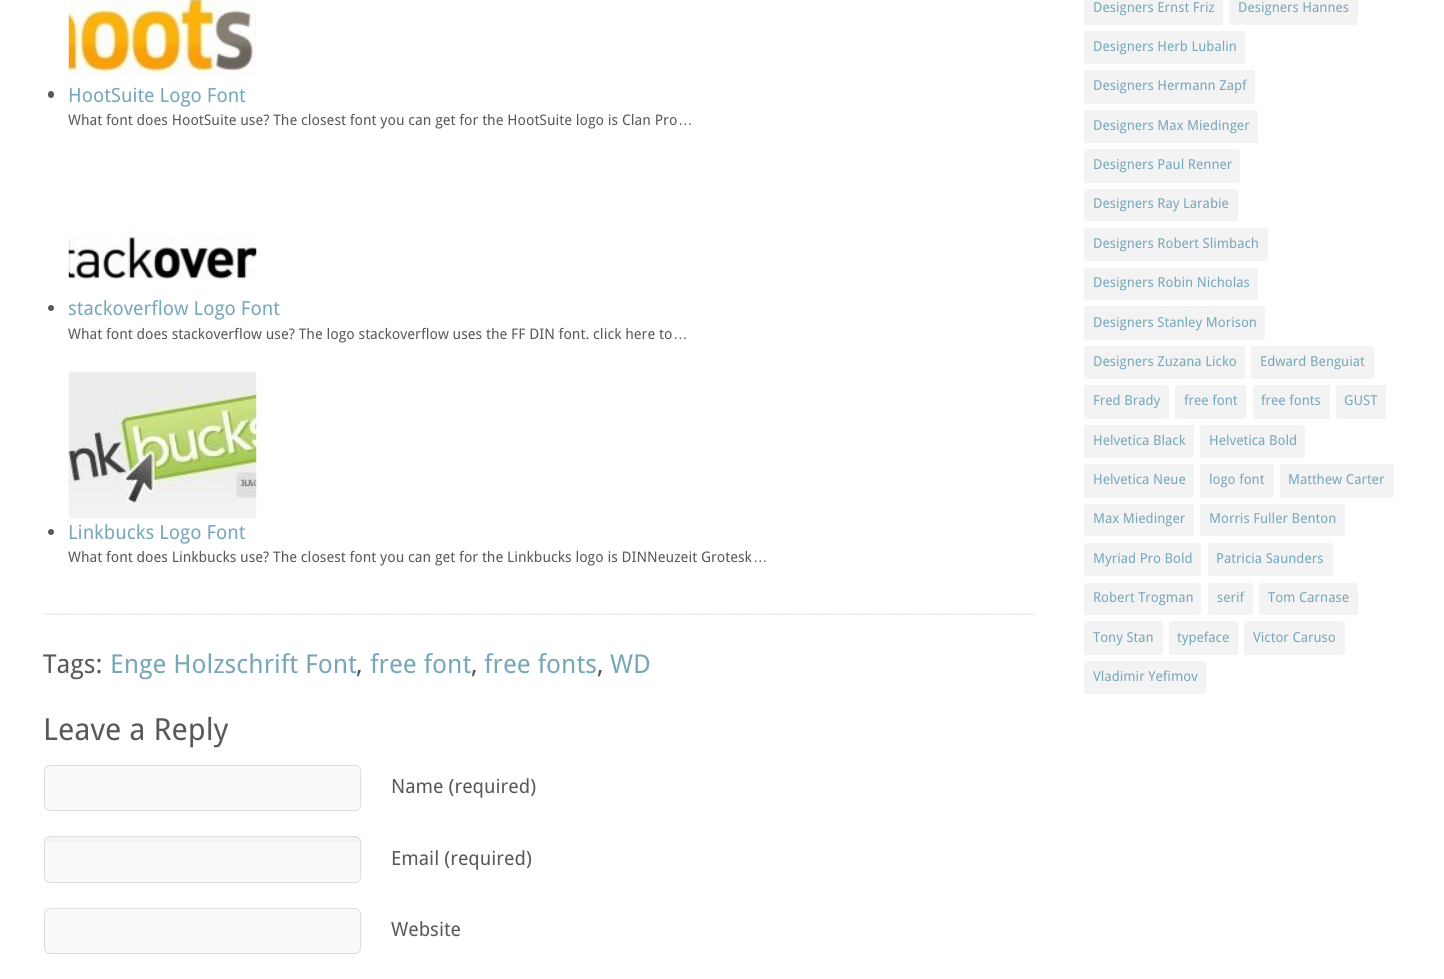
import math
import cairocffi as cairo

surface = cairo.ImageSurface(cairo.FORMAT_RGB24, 1444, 979)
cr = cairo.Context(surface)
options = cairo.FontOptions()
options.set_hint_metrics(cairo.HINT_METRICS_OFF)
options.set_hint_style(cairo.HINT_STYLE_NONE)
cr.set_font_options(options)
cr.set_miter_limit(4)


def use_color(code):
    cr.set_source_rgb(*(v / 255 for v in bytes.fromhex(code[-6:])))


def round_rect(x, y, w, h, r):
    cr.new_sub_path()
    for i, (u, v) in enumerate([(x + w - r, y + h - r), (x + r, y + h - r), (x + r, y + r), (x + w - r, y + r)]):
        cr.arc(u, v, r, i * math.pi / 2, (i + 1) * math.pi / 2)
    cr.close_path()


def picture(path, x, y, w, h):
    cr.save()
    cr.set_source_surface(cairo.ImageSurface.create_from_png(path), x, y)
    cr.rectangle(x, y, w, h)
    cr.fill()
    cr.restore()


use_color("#ffffff")
cr.paint()
picture("img1.png", 43, 613, 992, 2)
picture("img2.png", 68, 0, 189, 77)
use_color("#595959")
round_rect(48, 91, 6, 7, 3)
cr.fill()
cr.select_font_face("Droid Sans")
cr.set_font_size(19.5)
use_color("#77a7b9")
cr.move_to(68, 102)
cr.show_text("HootSuite Logo Font")
cr.set_font_size(14.6)
use_color("#595959")
cr.move_to(68, 125)
cr.show_text("What font does HootSuite use? The closest font you can get for the HootSuite logo is Clan Pro")
cr.select_font_face("Liberation Sans")
cr.move_to(678, 125)
cr.show_text("…")
picture("img3.png", 68, 230, 189, 49)
cr.arc(51, 308, 3, 0, 2 * math.pi)
cr.fill()
cr.select_font_face("Droid Sans")
cr.set_font_size(19.5)
use_color("#77a7b9")
cr.move_to(68, 315)
cr.show_text("stackoverflow Logo Font")
cr.set_font_size(14.6)
use_color("#595959")
cr.move_to(68, 339)
cr.show_text("What font does stackoverflow use? The logo stackoverflow uses the FF DIN font. click here to")
cr.select_font_face("Liberation Sans")
cr.move_to(673, 339)
cr.show_text("…")
picture("img4.png", 68, 372, 189, 147)
cr.arc(51, 532, 3, 0, 2 * math.pi)
cr.fill()
cr.select_font_face("Droid Sans")
cr.set_font_size(19.5)
use_color("#77a7b9")
cr.move_to(68, 539)
cr.show_text("Linkbucks Logo Font")
cr.set_font_size(14.6)
use_color("#595959")
cr.move_to(68, 562)
cr.show_text("What font does Linkbucks use? The closest font you can get for the Linkbucks logo is DINNeuzeit Grotesk")
cr.select_font_face("Liberation Sans")
cr.move_to(753, 562)
cr.show_text("…")
cr.select_font_face("Droid Sans")
cr.set_font_size(26)
cr.move_to(43, 673)
cr.show_text("Tags:")
use_color("#77a7b9")
cr.move_to(110, 673)
cr.show_text("Enge Holzschrift Font")
use_color("#595959")
cr.move_to(356, 673)
cr.show_text(",")
use_color("#77a7b9")
cr.move_to(370, 673)
cr.show_text("free font")
use_color("#595959")
cr.move_to(471, 673)
cr.show_text(",")
use_color("#77a7b9")
cr.move_to(484, 673)
cr.show_text("free fonts")
use_color("#595959")
cr.move_to(597, 673)
cr.show_text(",")
use_color("#77a7b9")
cr.move_to(610, 673)
cr.show_text("WD")
cr.set_font_size(30.5)
use_color("#595959")
cr.move_to(43, 740)
cr.show_text("Leave a Reply")
use_color("#fafafa")
round_rect(44.5, 765.5, 316, 45, 5.5)
cr.fill_preserve()
use_color("#dddddd")
cr.set_line_width(1)
cr.stroke()
cr.set_font_size(19.5)
use_color("#595959")
cr.move_to(391, 793)
cr.show_text("Name (required)")
use_color("#fafafa")
round_rect(44, 836, 317, 47, 6)
cr.fill()
cr.set_source_rgba(0, 0, 0, 0.03)
cr.rectangle(44, 837, 317, 5)
cr.fill()
round_rect(44.5, 836.5, 316, 46, 5.5)
use_color("#dddddd")
cr.stroke()
use_color("#595959")
cr.move_to(391, 865)
cr.show_text("Email (required)")
use_color("#fafafa")
round_rect(44.5, 908.5, 316, 45, 5.5)
cr.fill_preserve()
use_color("#dddddd")
cr.stroke()
use_color("#595959")
cr.move_to(391, 936)
cr.show_text("Website")
use_color("#f3f3f3")
round_rect(1084, -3, 139, 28, 2.5)
cr.fill()
cr.set_font_size(13.75)
use_color("#77a7b9")
cr.move_to(1093, 12)
cr.show_text("Designers Ernst Friz")
use_color("#f3f3f3")
round_rect(1229, -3, 129, 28, 2.5)
cr.fill()
use_color("#77a7b9")
cr.move_to(1238, 12)
cr.show_text("Designers Hannes")
use_color("#f3f3f3")
round_rect(1084, 31, 161, 33, 2.5)
cr.fill()
use_color("#77a7b9")
cr.move_to(1093, 51)
cr.show_text("Designers Herb Lubalin")
use_color("#f3f3f3")
round_rect(1084, 70, 171, 34, 2.5)
cr.fill()
use_color("#77a7b9")
cr.move_to(1093, 90)
cr.show_text("Designers Hermann Zapf")
use_color("#f3f3f3")
round_rect(1084, 110, 174, 33, 2.5)
cr.fill()
use_color("#77a7b9")
cr.move_to(1093, 130)
cr.show_text("Designers Max Miedinger")
use_color("#f3f3f3")
round_rect(1084, 149, 156, 34, 2.5)
cr.fill()
use_color("#77a7b9")
cr.move_to(1093, 169)
cr.show_text("Designers Paul Renner")
use_color("#f3f3f3")
round_rect(1084, 189, 154, 32, 2.5)
cr.fill()
use_color("#77a7b9")
cr.move_to(1093, 208)
cr.show_text("Designers Ray Larabie")
use_color("#f3f3f3")
round_rect(1084, 228, 184, 33, 2.5)
cr.fill()
use_color("#77a7b9")
cr.move_to(1093, 248)
cr.show_text("Designers Robert Slimbach")
use_color("#f3f3f3")
round_rect(1084, 268, 174, 32, 2.5)
cr.fill()
use_color("#77a7b9")
cr.move_to(1093, 287)
cr.show_text("Designers Robin Nicholas")
use_color("#f3f3f3")
round_rect(1084, 306, 181, 34, 2.5)
cr.fill()
use_color("#77a7b9")
cr.move_to(1093, 327)
cr.show_text("Designers Stanley Morison")
use_color("#f3f3f3")
round_rect(1084, 346, 161, 33, 2.5)
cr.fill()
use_color("#77a7b9")
cr.move_to(1093, 366)
cr.show_text("Designers Zuzana Licko")
use_color("#f3f3f3")
round_rect(1251, 346, 123, 33, 2.5)
cr.fill()
use_color("#77a7b9")
cr.move_to(1260, 366)
cr.show_text("Edward Benguiat")
use_color("#f3f3f3")
round_rect(1084, 385, 85, 34, 2.5)
cr.fill()
use_color("#77a7b9")
cr.move_to(1093, 405)
cr.show_text("Fred Brady")
use_color("#f3f3f3")
round_rect(1175, 385, 71, 34, 2.5)
cr.fill()
use_color("#77a7b9")
cr.move_to(1184, 405)
cr.show_text("free font")
use_color("#f3f3f3")
round_rect(1253, 385, 77, 34, 2.5)
cr.fill()
use_color("#77a7b9")
cr.move_to(1261, 405)
cr.show_text("free fonts")
use_color("#f3f3f3")
round_rect(1336, 385, 50, 34, 2.5)
cr.fill()
use_color("#77a7b9")
cr.move_to(1344, 405)
cr.show_text("GUST")
use_color("#f3f3f3")
round_rect(1084, 425, 110, 33, 2.5)
cr.fill()
use_color("#77a7b9")
cr.move_to(1093, 445)
cr.show_text("Helvetica Black")
use_color("#f3f3f3")
round_rect(1200, 425, 105, 33, 2.5)
cr.fill()
use_color("#77a7b9")
cr.move_to(1209, 445)
cr.show_text("Helvetica Bold")
use_color("#f3f3f3")
round_rect(1084, 464, 110, 34, 2.5)
cr.fill()
use_color("#77a7b9")
cr.move_to(1093, 484)
cr.show_text("Helvetica Neue")
use_color("#f3f3f3")
round_rect(1200, 464, 74, 34, 2.5)
cr.fill()
use_color("#77a7b9")
cr.move_to(1209, 484)
cr.show_text("logo font")
use_color("#f3f3f3")
round_rect(1280, 464, 114, 34, 2.5)
cr.fill()
use_color("#77a7b9")
cr.move_to(1288, 484)
cr.show_text("Matthew Carter")
use_color("#f3f3f3")
round_rect(1084, 504, 110, 32, 2.5)
cr.fill()
use_color("#77a7b9")
cr.move_to(1093, 523)
cr.show_text("Max Miedinger")
use_color("#f3f3f3")
round_rect(1200, 504, 145, 32, 2.5)
cr.fill()
use_color("#77a7b9")
cr.move_to(1209, 523)
cr.show_text("Morris Fuller Benton")
use_color("#f3f3f3")
round_rect(1084, 543, 117, 33, 2.5)
cr.fill()
use_color("#77a7b9")
cr.move_to(1093, 563)
cr.show_text("Myriad Pro Bold")
use_color("#f3f3f3")
round_rect(1208, 543, 125, 33, 2.5)
cr.fill()
use_color("#77a7b9")
cr.move_to(1216, 563)
cr.show_text("Patricia Saunders")
use_color("#f3f3f3")
round_rect(1084, 583, 117, 32, 2.5)
cr.fill()
use_color("#77a7b9")
cr.move_to(1093, 602)
cr.show_text("Robert Trogman")
use_color("#f3f3f3")
round_rect(1208, 583, 45, 32, 2.5)
cr.fill()
use_color("#77a7b9")
cr.move_to(1217, 602)
cr.show_text("serif")
use_color("#f3f3f3")
round_rect(1259, 583, 99, 32, 2.5)
cr.fill()
use_color("#77a7b9")
cr.move_to(1268, 602)
cr.show_text("Tom Carnase")
use_color("#f3f3f3")
round_rect(1084, 621, 79, 34, 2.5)
cr.fill()
use_color("#77a7b9")
cr.move_to(1093, 642)
cr.show_text("Tony Stan")
use_color("#f3f3f3")
round_rect(1169, 621, 69, 34, 2.5)
cr.fill()
use_color("#77a7b9")
cr.move_to(1177, 642)
cr.show_text("typeface")
use_color("#f3f3f3")
round_rect(1244, 621, 101, 34, 2.5)
cr.fill()
use_color("#77a7b9")
cr.move_to(1253, 642)
cr.show_text("Victor Caruso")
use_color("#f3f3f3")
round_rect(1084, 661, 122, 33, 2.5)
cr.fill()
use_color("#77a7b9")
cr.move_to(1093, 681)
cr.show_text("Vladimir Yefimov")
surface.write_to_png("result.png")
